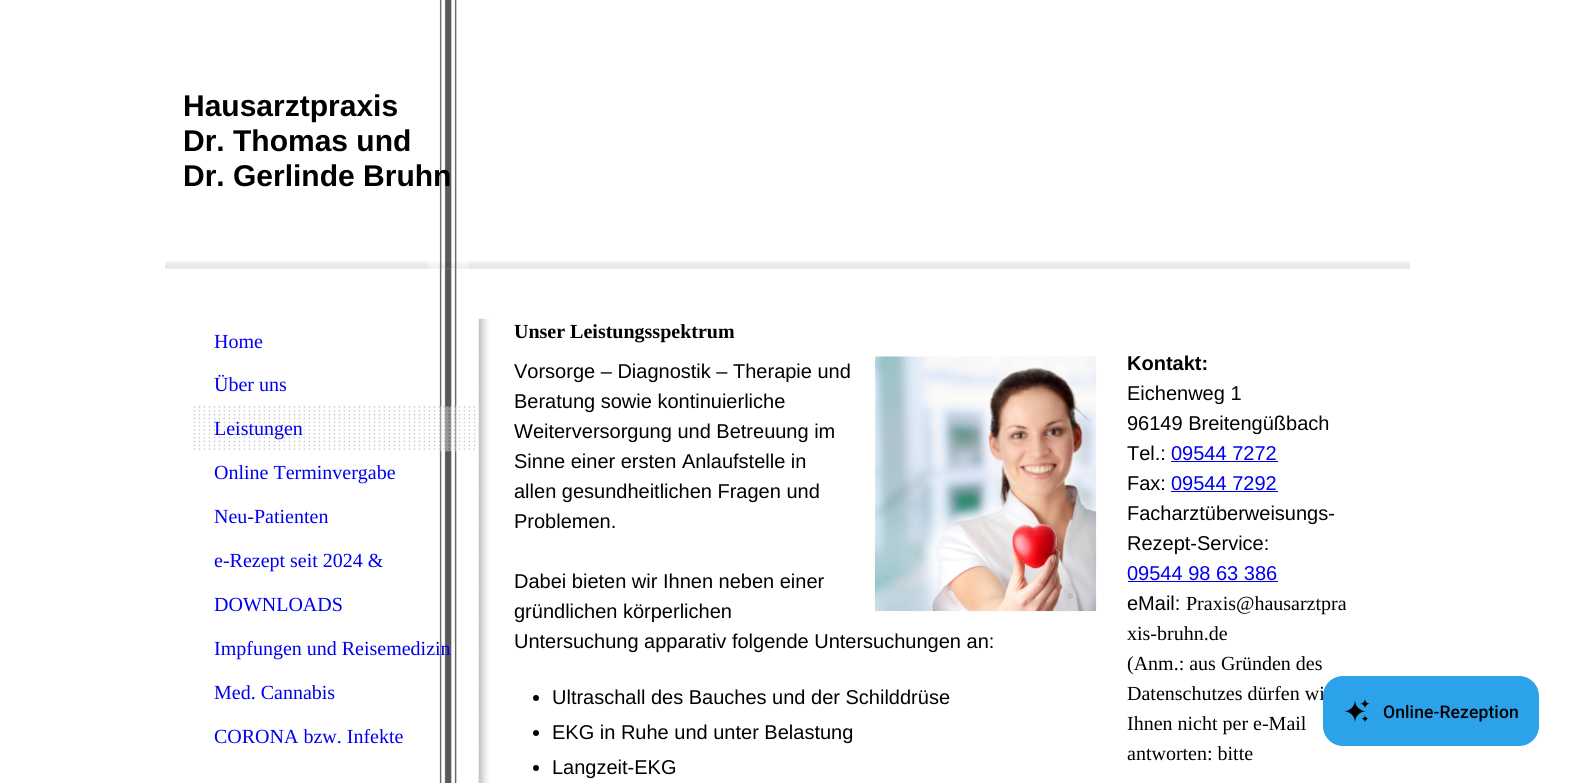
import math
import cairocffi as cairo

surface = cairo.ImageSurface(cairo.FORMAT_RGB24, 1573, 783)
cr = cairo.Context(surface)
options = cairo.FontOptions()
options.set_hint_metrics(cairo.HINT_METRICS_OFF)
options.set_hint_style(cairo.HINT_STYLE_NONE)
cr.set_font_options(options)
cr.set_miter_limit(4)


def use_color(code):
    cr.set_source_rgb(*(v / 255 for v in bytes.fromhex(code[-6:])))


def spaced_text(x, y, s, letter, word):
    cr.move_to(x, y)
    for ch in s:
        cr.show_text(ch)
        cr.rel_move_to(letter + word * (ch == ' '), 0)


def round_rect(x, y, w, h, r):
    cr.new_sub_path()
    for i, (u, v) in enumerate([(x + w - r, y + h - r), (x + r, y + h - r), (x + r, y + r), (x + w - r, y + r)]):
        cr.arc(u, v, r, i * math.pi / 2, (i + 1) * math.pi / 2)
    cr.close_path()


def picture(path, x, y, w, h):
    cr.save()
    cr.set_source_surface(cairo.ImageSurface.create_from_png(path), x, y)
    cr.rectangle(x, y, w, h)
    cr.fill()
    cr.restore()


use_color("#ffffff")
cr.paint()
picture("img2.png", 165, 261, 1245, 8)
picture("img1.png", 427, 0, 42, 269)
cr.select_font_face("Liberation Sans", cairo.FONT_SLANT_NORMAL, cairo.FONT_WEIGHT_BOLD)
cr.set_font_size(30)
use_color("#000000")
cr.move_to(183, 116)
cr.show_text("Hausarztpraxis")
cr.move_to(183, 151)
cr.show_text("Dr. Thomas und")
cr.move_to(183, 186)
cr.show_text("Dr. Gerlinde Bruhn")
picture("img3.png", 439, 268, 18, 515)
picture("img4.png", 478, 318, 11, 465)
cr.select_font_face("Liberation Serif")
cr.set_font_size(20)
use_color("#0000ee")
cr.move_to(214, 348)
cr.show_text("Home")
cr.move_to(214, 391)
cr.show_text("Über uns")
picture("img5.png", 193, 406, 283, 46)
cr.move_to(214, 435)
cr.show_text("Leistungen")
cr.move_to(214, 479)
cr.show_text("Online Terminvergabe")
cr.move_to(214, 523)
cr.show_text("Neu-Patienten")
cr.move_to(214, 567)
cr.show_text("e-Rezept seit 2024 &")
cr.move_to(214, 611)
cr.show_text("DOWNLOADS")
cr.move_to(214, 655)
cr.show_text("Impfungen und Reisemedizin")
cr.move_to(214, 699)
cr.show_text("Med. Cannabis")
cr.move_to(214, 743)
cr.show_text("CORONA bzw. Infekte")
cr.select_font_face("Liberation Serif", cairo.FONT_SLANT_NORMAL, cairo.FONT_WEIGHT_BOLD)
use_color("#000000")
cr.move_to(514, 338)
cr.show_text("Unser Leistungsspektrum")
cr.select_font_face("Liberation Sans")
cr.move_to(514, 378)
cr.show_text("Vorsorge – Diagnostik – Therapie und")
cr.move_to(514, 408)
cr.show_text("Beratung sowie kontinuierliche")
cr.move_to(514, 438)
cr.show_text("Weiterversorgung und Betreuung im")
cr.move_to(514, 468)
cr.show_text("Sinne einer ersten Anlaufstelle in")
cr.move_to(514, 498)
cr.show_text("allen gesundheitlichen Fragen und")
cr.move_to(514, 528)
cr.show_text("Problemen.")
picture("img6.png", 875, 356, 222, 256)
cr.move_to(514, 588)
cr.show_text("Dabei bieten wir Ihnen neben einer")
cr.move_to(514, 618)
cr.show_text("gründlichen körperlichen")
cr.move_to(514, 648)
cr.show_text("Untersuchung apparativ folgende Untersuchungen an:")
cr.new_path()
cr.arc(536, 698, 3, 0, 2 * math.pi)
cr.fill()
cr.move_to(552, 704)
cr.show_text("Ultraschall des Bauches und der Schilddrüse")
cr.new_path()
cr.arc(536, 733, 3, 0, 2 * math.pi)
cr.fill()
cr.move_to(552, 739)
cr.show_text("EKG in Ruhe und unter Belastung")
cr.new_path()
cr.arc(536, 768, 3, 0, 2 * math.pi)
cr.fill()
cr.move_to(552, 774)
cr.show_text("Langzeit-EKG")
cr.select_font_face("Liberation Sans", cairo.FONT_SLANT_NORMAL, cairo.FONT_WEIGHT_BOLD)
cr.move_to(1127, 370)
cr.show_text("Kontakt:")
cr.select_font_face("Liberation Sans")
cr.move_to(1127, 400)
cr.show_text("Eichenweg 1")
cr.move_to(1127, 430)
cr.show_text("96149 Breitengüßbach")
cr.move_to(1127, 460)
cr.show_text("Tel.:")
use_color("#0000ee")
cr.move_to(1171, 460)
cr.show_text("09544 7272")
cr.rectangle(1171, 461, 107, 1)
cr.fill()
use_color("#000000")
cr.move_to(1127, 490)
cr.show_text("Fax:")
use_color("#0000ee")
cr.move_to(1171, 490)
cr.show_text("09544 7292")
cr.rectangle(1171, 491, 107, 1)
cr.fill()
use_color("#000000")
cr.move_to(1127, 520)
cr.show_text("Facharztüberweisungs-")
cr.move_to(1127, 550)
cr.show_text("Rezept-Service:")
use_color("#0000ee")
cr.move_to(1127, 580)
cr.show_text("09544 98 63 386")
cr.rectangle(1128, 581, 150, 1)
cr.fill()
use_color("#000000")
cr.move_to(1127, 610)
cr.show_text("eMail:")
cr.select_font_face("Liberation Serif")
cr.move_to(1186, 610)
cr.show_text("Praxis@hausarztpra")
cr.move_to(1127, 640)
cr.show_text("xis-bruhn.de")
cr.move_to(1127, 670)
cr.show_text("(Anm.: aus Gründen des")
cr.move_to(1127, 700)
cr.show_text("Datenschutzes dürfen wi")
cr.move_to(1127, 730)
cr.show_text("Ihnen nicht per e-Mail")
cr.move_to(1127, 760)
cr.show_text("antworten: bitte")
use_color("#2ba2e9")
round_rect(1323, 676, 216, 70, 20)
cr.fill()
picture("img7.png", 1344, 699, 26, 23)
cr.select_font_face("Roboto Medium")
cr.set_font_size(17.5)
use_color("#000000")
spaced_text(1383, 718, "Online-Rezeption", 0.1, 0)
surface.write_to_png("result.png")
